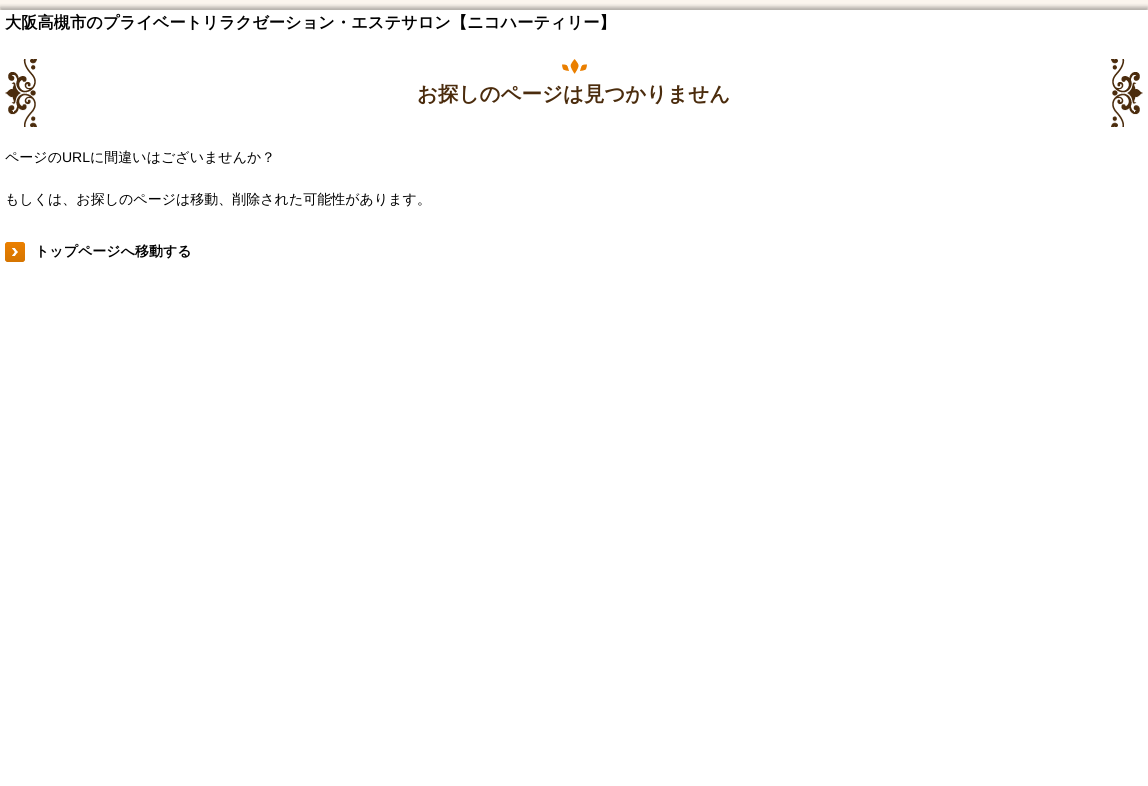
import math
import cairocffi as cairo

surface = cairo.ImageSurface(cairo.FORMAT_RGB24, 1148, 786)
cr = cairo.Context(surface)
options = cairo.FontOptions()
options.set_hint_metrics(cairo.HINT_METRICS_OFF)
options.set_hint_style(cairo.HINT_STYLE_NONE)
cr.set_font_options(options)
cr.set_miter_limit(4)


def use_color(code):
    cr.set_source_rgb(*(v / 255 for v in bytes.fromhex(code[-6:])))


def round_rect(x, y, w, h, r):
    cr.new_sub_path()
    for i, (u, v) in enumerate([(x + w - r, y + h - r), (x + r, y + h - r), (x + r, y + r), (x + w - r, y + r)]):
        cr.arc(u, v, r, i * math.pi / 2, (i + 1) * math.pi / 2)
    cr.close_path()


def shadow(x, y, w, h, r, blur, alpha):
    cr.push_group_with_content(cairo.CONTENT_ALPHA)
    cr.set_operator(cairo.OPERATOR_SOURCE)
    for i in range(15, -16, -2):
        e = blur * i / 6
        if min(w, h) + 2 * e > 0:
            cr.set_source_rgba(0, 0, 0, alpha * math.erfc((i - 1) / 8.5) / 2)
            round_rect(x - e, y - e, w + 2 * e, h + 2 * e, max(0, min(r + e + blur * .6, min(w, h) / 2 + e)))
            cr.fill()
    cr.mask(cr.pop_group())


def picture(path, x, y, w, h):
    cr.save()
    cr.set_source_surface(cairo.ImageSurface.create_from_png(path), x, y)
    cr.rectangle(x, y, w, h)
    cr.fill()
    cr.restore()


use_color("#fbf5ee")
cr.paint()
use_color("#000000")
shadow(0, 7, 1148, 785, 0, 2, 0.3)
use_color("#ffffff")
cr.rectangle(0, 10, 1148, 776)
cr.fill()
cr.select_font_face("WenQuanYi Zen Hei", cairo.FONT_SLANT_NORMAL, cairo.FONT_WEIGHT_BOLD)
cr.set_font_size(16.25)
use_color("#000000")
cr.move_to(5, 28)
cr.show_text("大阪高槻市のプライベートリラクゼーション・エステサロン【ニコハーティリー】")
picture("img1.png", 5, 59, 1138, 68)
cr.set_font_size(20.5)
use_color("#4b2c0d")
cr.move_to(417, 101)
cr.show_text("お探しのページは見つかりません")
cr.select_font_face("WenQuanYi Zen Hei Medium")
cr.set_font_size(14)
use_color("#000000")
cr.move_to(5, 162)
cr.show_text("ページの")
cr.select_font_face("Liberation Sans")
cr.move_to(62, 162)
cr.show_text("URL")
cr.select_font_face("WenQuanYi Zen Hei Medium")
cr.move_to(90, 162)
cr.show_text("に間違いはございませんか？")
cr.move_to(5, 204)
cr.show_text("もしくは、お探しのページは移動、削除された可能性があります。")
picture("img2.png", 5, 242, 20, 20)
cr.select_font_face("WenQuanYi Zen Hei", cairo.FONT_SLANT_NORMAL, cairo.FONT_WEIGHT_BOLD)
cr.move_to(35, 256)
cr.show_text("トップページへ移動する")
surface.write_to_png("result.png")
